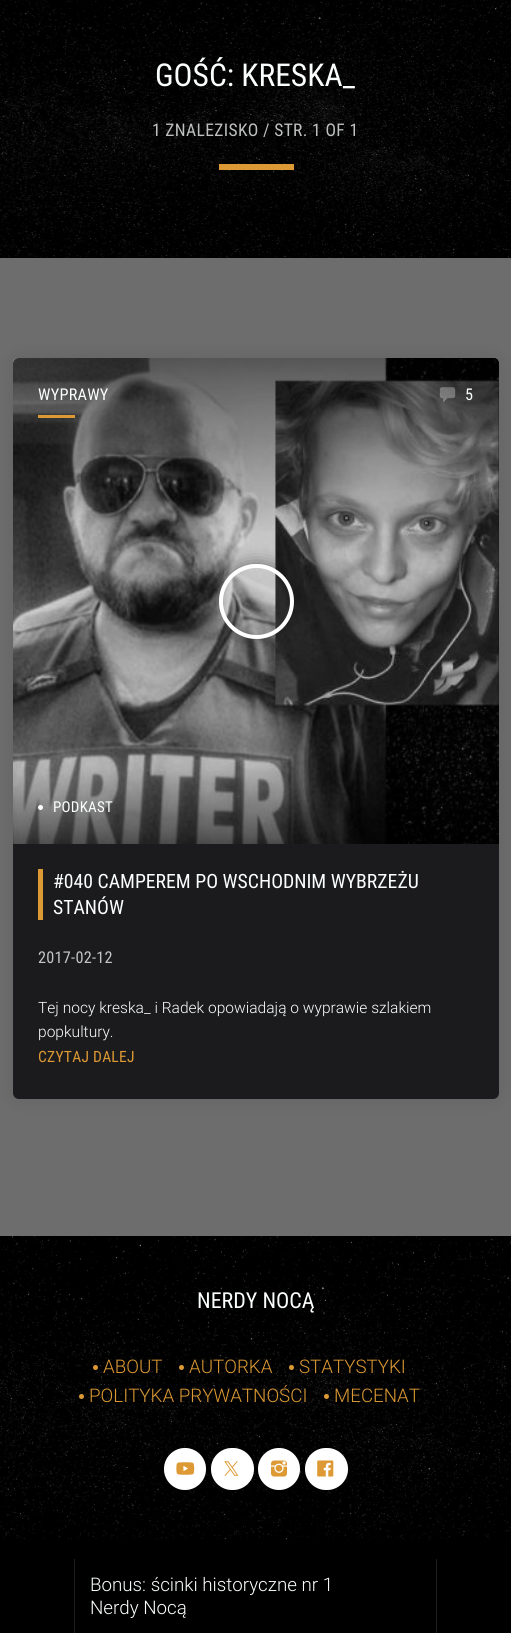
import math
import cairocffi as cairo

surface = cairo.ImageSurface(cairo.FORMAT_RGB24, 511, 1633)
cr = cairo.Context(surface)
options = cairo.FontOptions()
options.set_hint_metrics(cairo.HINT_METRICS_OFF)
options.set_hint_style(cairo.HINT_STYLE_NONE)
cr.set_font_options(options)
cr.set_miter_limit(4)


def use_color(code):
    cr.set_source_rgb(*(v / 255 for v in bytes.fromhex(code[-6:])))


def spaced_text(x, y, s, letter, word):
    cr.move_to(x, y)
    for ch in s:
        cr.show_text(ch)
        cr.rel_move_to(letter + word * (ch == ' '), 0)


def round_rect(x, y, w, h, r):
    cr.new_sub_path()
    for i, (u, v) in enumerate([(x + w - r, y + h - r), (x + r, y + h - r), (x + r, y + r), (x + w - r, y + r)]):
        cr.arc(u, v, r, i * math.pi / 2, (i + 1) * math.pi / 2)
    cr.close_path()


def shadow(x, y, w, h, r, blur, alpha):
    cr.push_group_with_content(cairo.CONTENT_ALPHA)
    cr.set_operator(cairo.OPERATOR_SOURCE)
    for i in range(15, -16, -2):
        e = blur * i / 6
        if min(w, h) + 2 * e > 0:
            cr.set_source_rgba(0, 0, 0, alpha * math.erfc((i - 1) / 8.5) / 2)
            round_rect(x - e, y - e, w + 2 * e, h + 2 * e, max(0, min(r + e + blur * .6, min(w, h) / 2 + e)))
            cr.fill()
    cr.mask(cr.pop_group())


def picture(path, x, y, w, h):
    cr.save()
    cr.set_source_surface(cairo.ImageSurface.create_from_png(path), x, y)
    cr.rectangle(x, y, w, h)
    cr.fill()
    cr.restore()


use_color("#6d6d6d")
cr.paint()
picture("img1.png", 0, 0, 511, 258)
cr.select_font_face("Roboto Condensed")
cr.set_font_size(31.5)
use_color("#fbfffe")
cr.move_to(155, 86)
cr.show_text("GOŚĆ: KRESKA_")
cr.set_font_size(17.5)
use_color("#bec1c0")
spaced_text(152, 136, "1 ZNALEZISKO / STR. 1 OF 1", 0.35, 0)
use_color("#dd9933")
cr.rectangle(219, 164, 75, 6)
cr.fill()
use_color("#000000")
shadow(13, 358, 486, 741, 6, 9.5, 0.1)
use_color("#1b1b1e")
round_rect(13, 358, 486, 741, 6)
cr.fill()
use_color("#111111")
cr.new_path()
cr.move_to(19, 358)
cr.line_to(493, 358)
cr.curve_to(496.5, 358, 499, 360.5, 499, 364)
cr.line_to(499, 844)
cr.line_to(13, 844)
cr.line_to(13, 364)
cr.curve_to(13, 360.5, 15.5, 358, 19, 358)
cr.close_path()
cr.fill()
picture("img2.png", 13, 358, 486, 486)
gradient = cairo.LinearGradient(256, 358, 256, 844)
gradient.add_color_stop_rgba(0, 0, 0, 0, 0.65)
gradient.add_color_stop_rgba(0.36, 0, 0, 0, 0.15)
gradient.add_color_stop_rgba(0.81, 0, 0, 0, 0.15)
gradient.add_color_stop_rgba(1, 0, 0, 0, 0.65)
cr.set_source(gradient)
cr.new_path()
cr.move_to(19, 358)
cr.line_to(493, 358)
cr.curve_to(496.5, 358, 499, 360.5, 499, 364)
cr.line_to(499, 844)
cr.line_to(13, 844)
cr.line_to(13, 364)
cr.curve_to(13, 360.5, 15.5, 358, 19, 358)
cr.close_path()
cr.fill()
cr.set_font_size(16.25)
use_color("#fbfffe")
spaced_text(38, 400, "WYPRAWY", 0.25, 0)
use_color("#dd9933")
cr.rectangle(38, 415, 37, 3)
cr.fill()
picture("img3.png", 439, 387, 17, 16)
use_color("#fbfffe")
spaced_text(465, 400, "5", 0.25, 0)
cr.save()
cr.set_fill_rule(cairo.FILL_RULE_EVEN_ODD)
cr.new_path()
cr.move_to(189, 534)
cr.line_to(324, 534)
cr.line_to(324, 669)
cr.line_to(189, 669)
cr.close_path()
cr.move_to(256.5, 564)
cr.curve_to(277, 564, 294, 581, 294, 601.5)
cr.curve_to(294, 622, 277, 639, 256.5, 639)
cr.curve_to(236, 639, 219, 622, 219, 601.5)
cr.curve_to(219, 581, 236, 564, 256.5, 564)
cr.close_path()
cr.clip()
use_color("#000000")
shadow(219, 564, 75, 75, 37.5, 9.5, 0.5)
cr.restore()
cr.arc(256.5, 601.5, 35.5, 0, 2 * math.pi)
use_color("#ffffff")
cr.set_line_width(4)
cr.stroke()
cr.arc(40.5, 807.5, 2.5, 0, 2 * math.pi)
cr.fill()
cr.set_font_size(15)
use_color("#fbfffe")
spaced_text(53, 812, "PODKAST", 0.25, 0)
use_color("#dd9933")
cr.rectangle(38, 869, 5, 51)
cr.fill()
cr.set_font_size(19.7)
use_color("#fbfffe")
cr.move_to(53, 888)
cr.show_text("#040 CAMPEREM PO WSCHODNIM WYBRZEŻU")
cr.move_to(53, 914)
cr.show_text("STANÓW")
cr.set_font_size(16.25)
use_color("#c3c6c6")
spaced_text(38, 963, "2017-02-12", 0.25, 0)
cr.select_font_face("Roboto Light")
cr.set_font_size(15.55)
use_color("#fbfffe")
cr.move_to(38, 1013)
cr.show_text("Tej nocy kreska_ i Radek opowiadają o wyprawie szlakiem")
cr.move_to(38, 1037)
cr.show_text("popkultury.")
cr.select_font_face("Roboto Condensed")
use_color("#dd9933")
spaced_text(38, 1062, "CZYTAJ DALEJ", 0.25, 0)
picture("img4.png", 0, 1236, 511, 304)
cr.set_font_size(22)
use_color("#fbfffe")
cr.move_to(197, 1308)
cr.show_text("NERDY NOCĄ")
use_color("#dd9933")
cr.new_path()
cr.arc(95.5, 1367.5, 2.5, 0, 2 * math.pi)
cr.fill()
cr.select_font_face("Roboto Light")
cr.set_font_size(18.75)
cr.move_to(103, 1373)
cr.show_text("ABOUT")
cr.new_path()
cr.arc(181.5, 1367.5, 2.5, 0, 2 * math.pi)
cr.fill()
cr.move_to(189, 1373)
cr.show_text("AUTORKA")
cr.new_path()
cr.arc(291.5, 1367.5, 2.5, 0, 2 * math.pi)
cr.fill()
cr.move_to(299, 1373)
cr.show_text("STATYSTYKI")
cr.new_path()
cr.arc(81.5, 1396.5, 2.5, 0, 2 * math.pi)
cr.fill()
cr.move_to(89, 1402)
cr.show_text("POLITYKA PRYWATNOŚCI")
cr.new_path()
cr.arc(326.5, 1396.5, 2.5, 0, 2 * math.pi)
cr.fill()
cr.move_to(334, 1402)
cr.show_text("MECENAT")
use_color("#ffffff")
cr.new_path()
cr.arc(185, 1469, 21, 0, 2 * math.pi)
cr.fill()
cr.arc(185, 1469, 20.5, 0, 2 * math.pi)
cr.set_source_rgba(0.984, 1, 0.996, 0.2)
cr.set_line_width(1)
cr.stroke()
picture("img5.png", 176, 1462, 19, 13)
use_color("#ffffff")
round_rect(211, 1448, 43, 42, 21)
cr.fill()
round_rect(211.5, 1448.5, 42, 41, 20.5)
cr.set_source_rgba(0.984, 1, 0.996, 0.2)
cr.stroke()
picture("img6.png", 224, 1461, 15, 15)
use_color("#ffffff")
cr.arc(279, 1469, 21, 0, 2 * math.pi)
cr.fill()
cr.arc(279, 1469, 20.5, 0, 2 * math.pi)
cr.set_source_rgba(0.984, 1, 0.996, 0.2)
cr.stroke()
picture("img7.png", 271, 1460, 16, 17)
use_color("#ffffff")
round_rect(305, 1448, 43, 42, 21)
cr.fill()
round_rect(305.5, 1448.5, 42, 41, 20.5)
cr.set_source_rgba(0.984, 1, 0.996, 0.2)
cr.stroke()
picture("img8.png", 317, 1460, 17, 17)
use_color("#000000")
cr.rectangle(0, 1540, 511, 93)
cr.fill()
use_color("#1e1e1e")
cr.rectangle(74, 1559, 1, 74)
cr.fill()
use_color("#fbfffe")
cr.move_to(90, 1591)
cr.show_text("Bonus: ścinki historyczne nr 1")
cr.move_to(90, 1614)
cr.show_text("Nerdy Nocą")
use_color("#1e1e1e")
cr.rectangle(436, 1559, 1, 74)
cr.fill()
surface.write_to_png("result.png")
